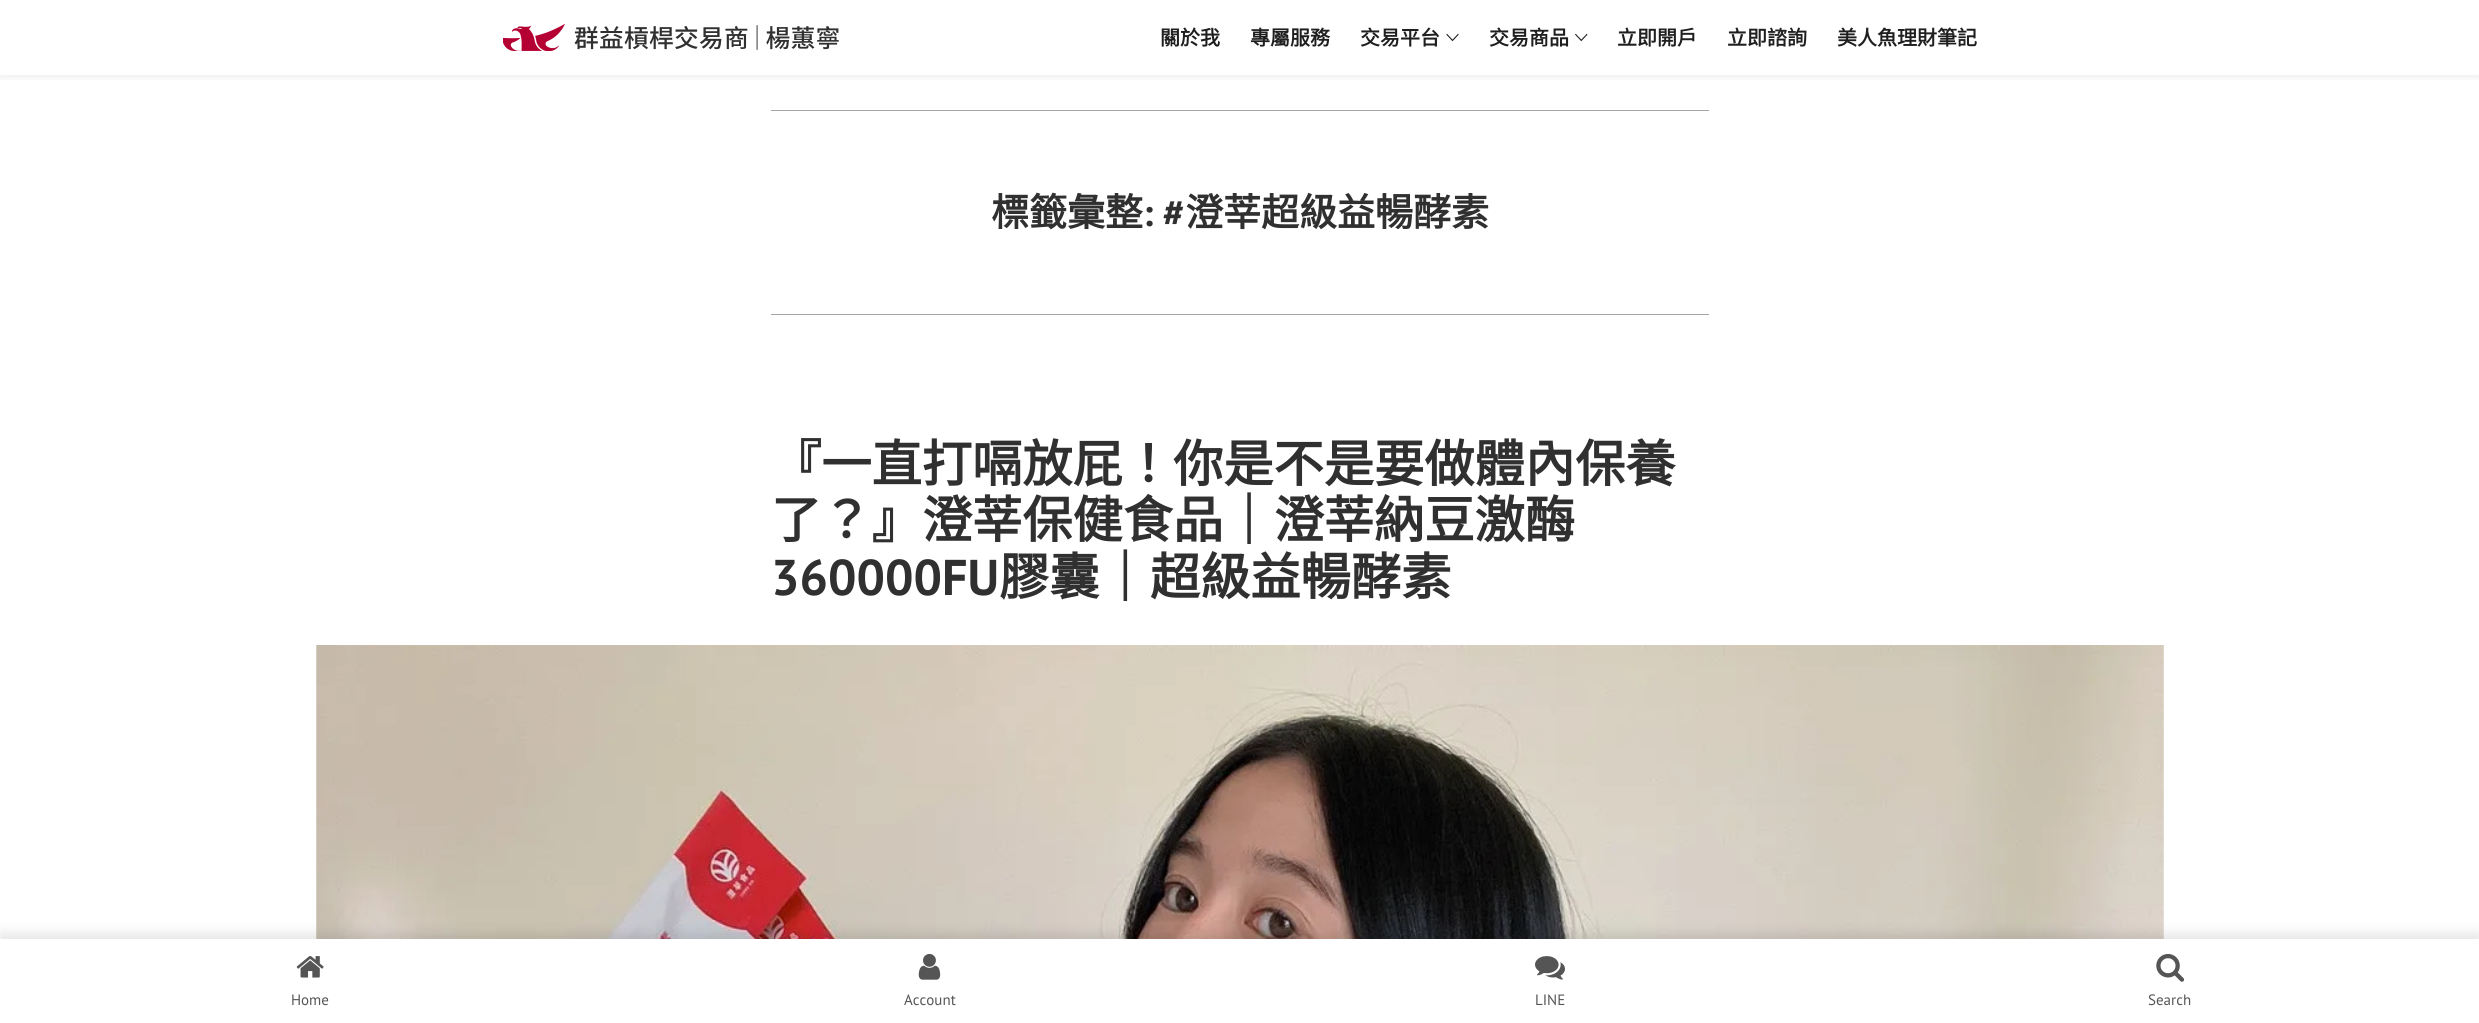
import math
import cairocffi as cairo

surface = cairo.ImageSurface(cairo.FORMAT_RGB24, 2479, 1023)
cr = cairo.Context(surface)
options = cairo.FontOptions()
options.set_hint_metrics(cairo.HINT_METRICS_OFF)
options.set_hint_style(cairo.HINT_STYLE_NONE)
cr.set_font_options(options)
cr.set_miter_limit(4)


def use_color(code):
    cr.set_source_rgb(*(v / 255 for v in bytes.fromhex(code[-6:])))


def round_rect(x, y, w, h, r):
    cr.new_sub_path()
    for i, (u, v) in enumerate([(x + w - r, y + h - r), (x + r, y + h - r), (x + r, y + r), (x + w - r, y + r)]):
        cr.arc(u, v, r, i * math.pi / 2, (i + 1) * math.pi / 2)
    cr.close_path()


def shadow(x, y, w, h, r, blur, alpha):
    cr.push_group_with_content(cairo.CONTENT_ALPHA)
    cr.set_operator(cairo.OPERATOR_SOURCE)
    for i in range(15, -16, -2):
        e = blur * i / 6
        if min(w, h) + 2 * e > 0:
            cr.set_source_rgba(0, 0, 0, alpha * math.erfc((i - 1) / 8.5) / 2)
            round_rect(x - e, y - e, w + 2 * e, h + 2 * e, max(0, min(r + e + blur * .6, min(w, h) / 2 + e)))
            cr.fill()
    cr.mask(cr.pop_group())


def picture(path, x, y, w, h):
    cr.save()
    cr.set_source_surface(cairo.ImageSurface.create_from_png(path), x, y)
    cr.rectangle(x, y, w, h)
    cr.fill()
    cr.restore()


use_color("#ffffff")
cr.paint()
cr.save()
cr.rectangle(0, 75, 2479, 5)
cr.clip()
use_color("#000000")
shadow(0, 0, 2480, 75, 0, 6, 0.1)
cr.restore()
picture("img1.png", 503, 24, 336, 27)
cr.select_font_face("Noto Sans CJK TC", cairo.FONT_SLANT_NORMAL, cairo.FONT_WEIGHT_BOLD)
cr.set_font_size(20)
use_color("#1f1f1f")
cr.move_to(1160, 45)
cr.show_text("關於我")
cr.move_to(1250, 45)
cr.show_text("專屬服務")
cr.move_to(1360, 45)
cr.show_text("交易平台")
picture("img2.png", 1446, 33, 13, 9)
cr.move_to(1489, 45)
cr.show_text("交易商品")
picture("img3.png", 1575, 33, 13, 9)
cr.move_to(1617, 45)
cr.show_text("立即開戶")
cr.move_to(1727, 45)
cr.show_text("立即諮詢")
cr.move_to(1837, 45)
cr.show_text("美人魚理財筆記")
use_color("#a5a5a5")
cr.rectangle(771, 110, 938, 1)
cr.fill()
cr.set_font_size(38)
use_color("#303030")
cr.move_to(991, 226)
cr.show_text("標籤彙整")
cr.select_font_face("PT Sans", cairo.FONT_SLANT_NORMAL, cairo.FONT_WEIGHT_BOLD)
cr.move_to(1143, 226)
cr.show_text(": #")
cr.select_font_face("Noto Sans CJK TC", cairo.FONT_SLANT_NORMAL, cairo.FONT_WEIGHT_BOLD)
cr.move_to(1185, 226)
cr.show_text("澄莘超級益暢酵素")
use_color("#a5a5a5")
cr.rectangle(771, 314, 938, 1)
cr.fill()
cr.set_font_size(50.25)
use_color("#303030")
cr.move_to(771, 482)
cr.show_text("『一直打嗝放屁！你是不是要做體內保養")
cr.move_to(771, 538)
cr.show_text("了？』澄莘保健食品｜澄莘納豆激酶")
cr.select_font_face("PT Sans", cairo.FONT_SLANT_NORMAL, cairo.FONT_WEIGHT_BOLD)
cr.move_to(771, 595)
cr.show_text("360000FU")
cr.select_font_face("Noto Sans CJK TC", cairo.FONT_SLANT_NORMAL, cairo.FONT_WEIGHT_BOLD)
cr.move_to(999, 595)
cr.show_text("膠囊｜超級益暢酵素")
picture("img4.png", 316, 645, 1848, 294)
use_color("#000000")
shadow(0, 933, 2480, 85, 0, 6, 0.1)
use_color("#ffffff")
cr.rectangle(0, 939, 2479, 84)
cr.fill()
picture("img5.png", 296, 956, 28, 22)
cr.select_font_face("PT Sans")
cr.set_font_size(15)
use_color("#555555")
cr.move_to(291, 1005)
cr.show_text("Home")
picture("img6.png", 918, 953, 23, 27)
cr.move_to(904, 1005)
cr.show_text("Account")
picture("img7.png", 1535, 956, 30, 24)
cr.move_to(1535, 1005)
cr.show_text("LINE")
picture("img8.png", 2156, 953, 29, 29)
cr.move_to(2148, 1005)
cr.show_text("Search")
surface.write_to_png("result.png")
